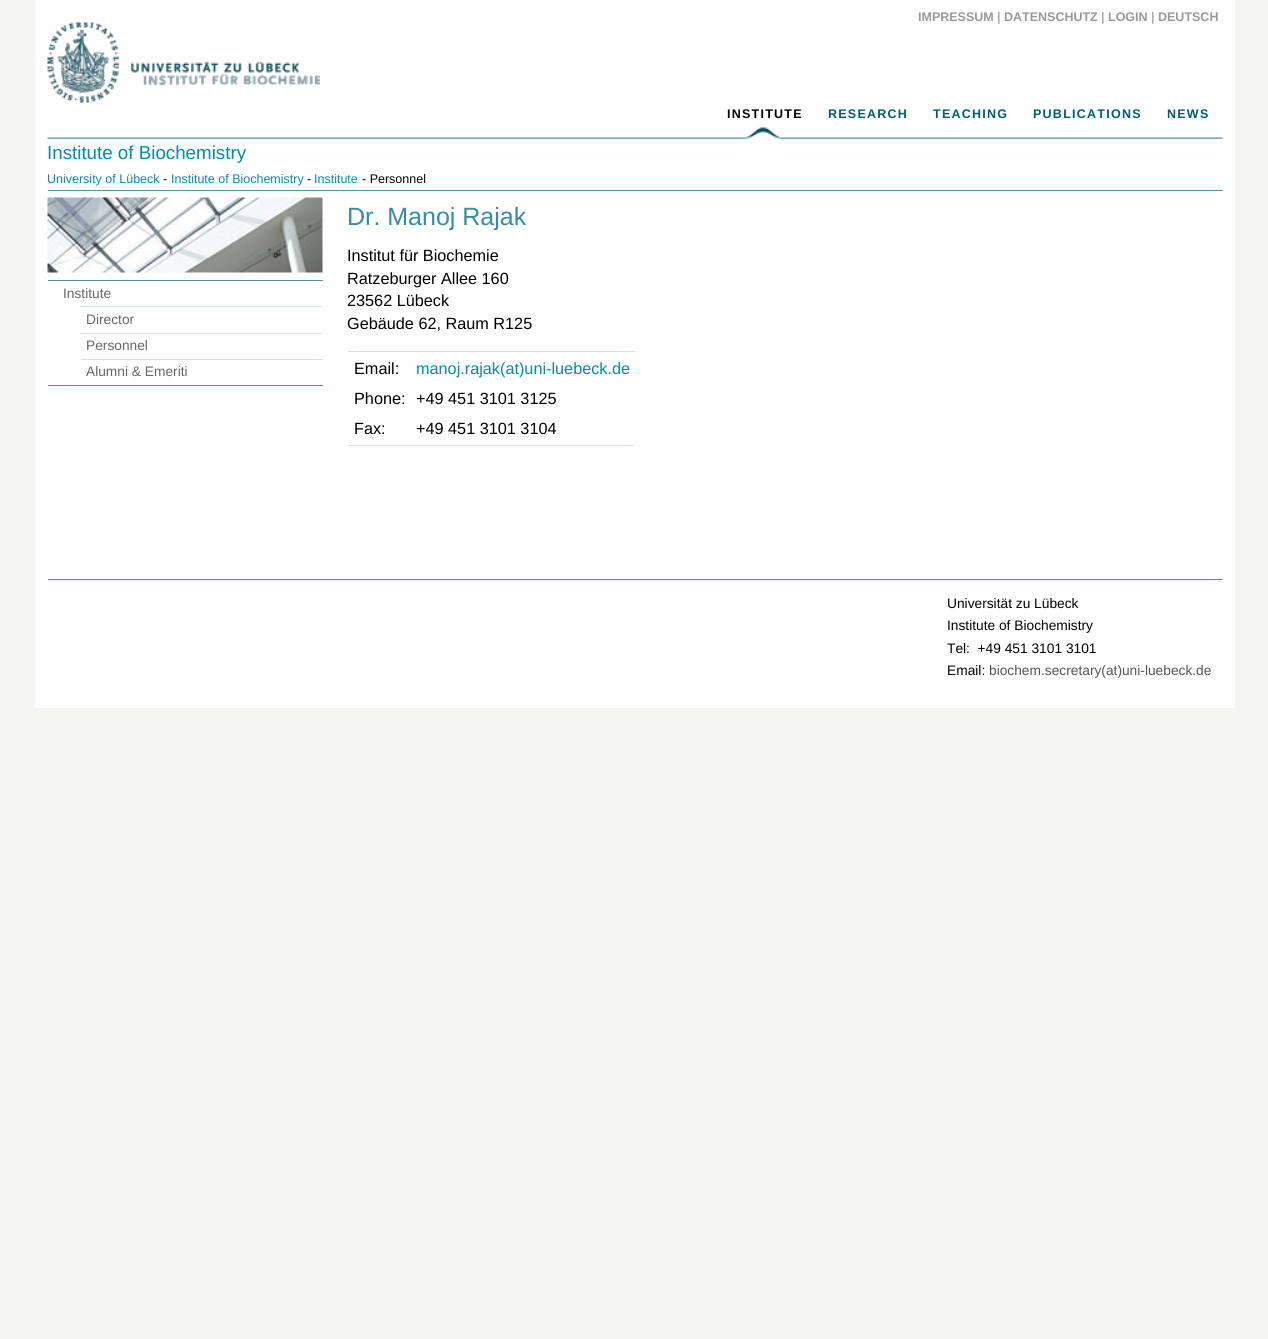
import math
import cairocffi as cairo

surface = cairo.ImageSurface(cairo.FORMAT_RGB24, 1268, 1339)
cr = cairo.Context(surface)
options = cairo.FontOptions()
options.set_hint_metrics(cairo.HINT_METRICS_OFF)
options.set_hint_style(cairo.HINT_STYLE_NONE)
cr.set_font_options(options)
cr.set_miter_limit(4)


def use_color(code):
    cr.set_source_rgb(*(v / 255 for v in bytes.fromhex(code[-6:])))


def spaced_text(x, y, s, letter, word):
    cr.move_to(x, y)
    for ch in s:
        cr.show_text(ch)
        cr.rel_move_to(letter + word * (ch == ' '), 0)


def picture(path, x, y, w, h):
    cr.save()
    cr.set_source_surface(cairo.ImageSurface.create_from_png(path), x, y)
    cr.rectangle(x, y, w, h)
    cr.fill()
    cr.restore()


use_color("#f5f6f3")
cr.paint()
use_color("#ffffff")
cr.rectangle(35, 0, 1200, 708)
cr.fill()
cr.select_font_face("Liberation Sans", cairo.FONT_SLANT_NORMAL, cairo.FONT_WEIGHT_BOLD)
cr.set_font_size(12.5)
use_color("#999999")
cr.move_to(918, 21)
cr.show_text("IMPRESSUM")
use_color("#aaaaaa")
cr.move_to(997, 21)
cr.show_text("|")
use_color("#999999")
cr.move_to(1004, 21)
cr.show_text("DATENSCHUTZ")
use_color("#aaaaaa")
cr.move_to(1101, 21)
cr.show_text("|")
use_color("#999999")
cr.move_to(1108, 21)
cr.show_text("LOGIN")
use_color("#aaaaaa")
cr.move_to(1151, 21)
cr.show_text("|")
use_color("#999999")
cr.move_to(1158, 21)
cr.show_text("DEUTSCH")
picture("img1.png", 47, 22, 273, 81)
picture("img2.png", 47, 137, 1176, 2)
use_color("#ffffff")
cr.rectangle(714, 137, 101, 2)
cr.fill()
picture("img3.png", 713, 127, 102, 12)
use_color("#000000")
spaced_text(727, 118, "INSTITUTE", 1.25, 0)
use_color("#005d6f")
spaced_text(828, 118, "RESEARCH", 1.25, 0)
spaced_text(933, 118, "TEACHING", 1.25, 0)
spaced_text(1033, 118, "PUBLICATIONS", 1.25, 0)
spaced_text(1167, 118, "NEWS", 1.25, 0)
cr.select_font_face("Liberation Sans")
cr.set_font_size(18.75)
use_color("#008da5")
cr.move_to(47, 159)
cr.show_text("Institute of Biochemistry")
use_color("#5c8f99")
cr.rectangle(48, 190, 1175, 1)
cr.fill()
cr.set_font_size(12.5)
use_color("#008da5")
cr.move_to(47, 183)
cr.show_text("University of Lübeck")
use_color("#000000")
cr.move_to(163, 183)
cr.show_text("-")
use_color("#008da5")
cr.move_to(171, 183)
cr.show_text("Institute of Biochemistry")
use_color("#000000")
cr.move_to(307, 183)
cr.show_text("-")
use_color("#008da5")
cr.move_to(314, 183)
cr.show_text("Institute")
use_color("#000000")
cr.move_to(362, 183)
cr.show_text("- Personnel")
picture("img4.png", 47, 197, 276, 76)
use_color("#5c8f99")
cr.rectangle(48, 385, 275, 1)
cr.fill()
cr.rectangle(48, 280, 275, 1)
cr.fill()
cr.set_font_size(13.75)
use_color("#666666")
cr.move_to(63, 298)
cr.show_text("Institute")
use_color("#d6e3e5")
cr.rectangle(81, 306, 242, 1)
cr.fill()
use_color("#666666")
cr.move_to(86, 324)
cr.show_text("Director")
use_color("#d6e3e5")
cr.rectangle(81, 333, 242, 1)
cr.fill()
use_color("#666666")
cr.move_to(86, 350)
cr.show_text("Personnel")
use_color("#d6e3e5")
cr.rectangle(81, 359, 242, 1)
cr.fill()
use_color("#666666")
cr.move_to(86, 376)
cr.show_text("Alumni & Emeriti")
cr.set_font_size(25)
use_color("#368ca2")
cr.move_to(347, 225)
cr.show_text("Dr. Manoj Rajak")
cr.set_font_size(16.25)
use_color("#000000")
cr.move_to(347, 261)
cr.show_text("Institut für Biochemie")
cr.move_to(347, 284)
cr.show_text("Ratzeburger Allee 160")
cr.move_to(347, 306)
cr.show_text("23562 Lübeck")
cr.move_to(347, 329)
cr.show_text("Gebäude 62, Raum R125")
use_color("#d6e3e5")
cr.rectangle(348, 351, 287, 1)
cr.fill()
cr.rectangle(348, 445, 287, 1)
cr.fill()
use_color("#000000")
cr.move_to(354, 374)
cr.show_text("Email:")
use_color("#008da5")
cr.move_to(416, 374)
cr.show_text("manoj.rajak(at)uni-luebeck.de")
use_color("#000000")
cr.move_to(354, 404)
cr.show_text("Phone:")
cr.move_to(416, 404)
cr.show_text("+49 451 3101 3125")
cr.move_to(354, 434)
cr.show_text("Fax:")
cr.move_to(416, 434)
cr.show_text("+49 451 3101 3104")
use_color("#5c8f99")
cr.rectangle(48, 579, 1175, 1)
cr.fill()
cr.save()
cr.rectangle(948, 591, 275, 104)
cr.clip()
cr.set_font_size(13.75)
use_color("#000000")
cr.move_to(947, 608)
cr.show_text("Universität zu Lübeck")
cr.restore()
cr.set_font_size(13.75)
use_color("#000000")
cr.move_to(947, 630)
cr.show_text("Institute of Biochemistry")
cr.move_to(947, 653)
cr.show_text("Tel:  +49 451 3101 3101")
cr.move_to(947, 675)
cr.show_text("Email:")
use_color("#555555")
cr.move_to(989, 675)
cr.show_text("biochem.secretary(at)uni-luebeck.de")
surface.write_to_png("result.png")
